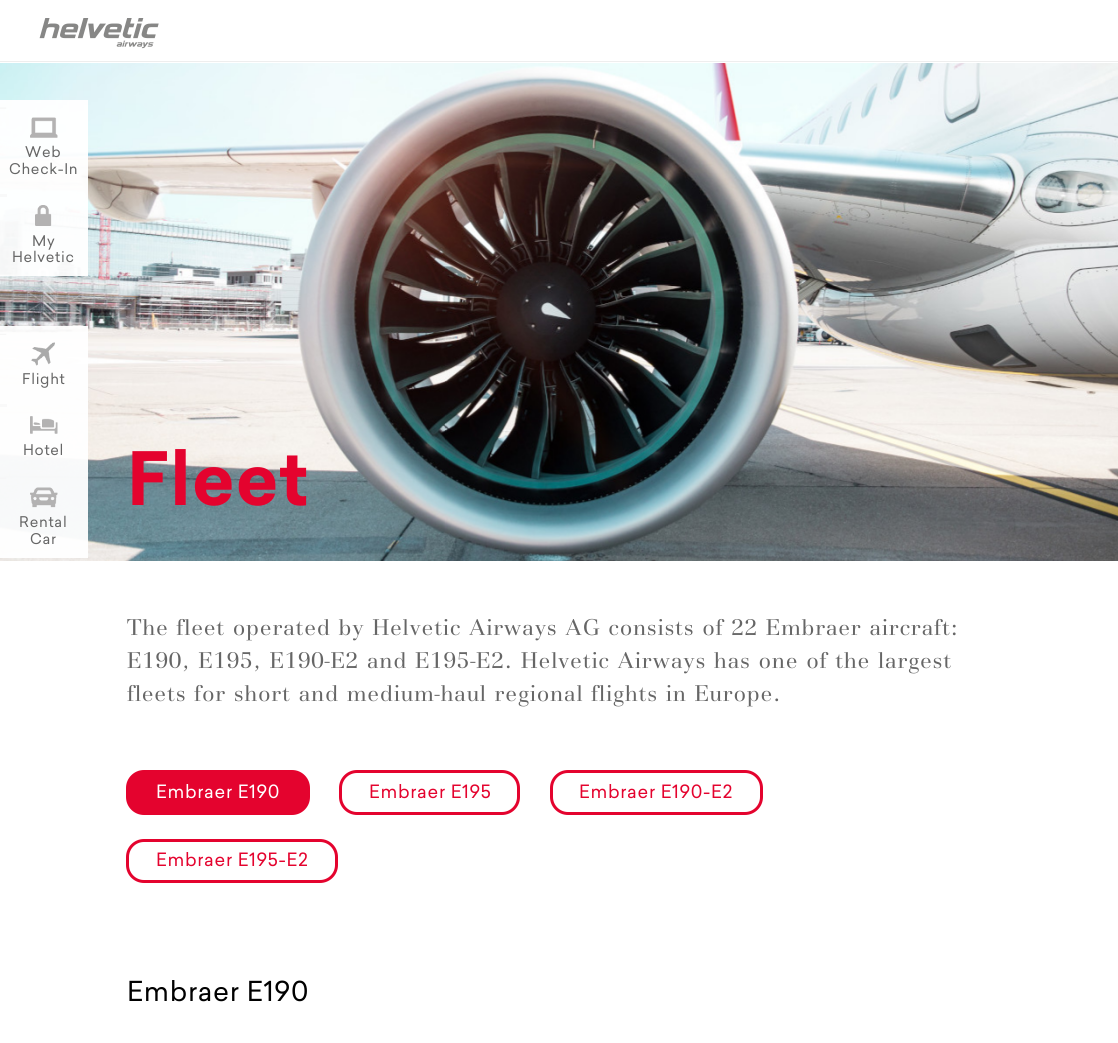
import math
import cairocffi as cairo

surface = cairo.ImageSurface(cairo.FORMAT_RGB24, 1118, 1043)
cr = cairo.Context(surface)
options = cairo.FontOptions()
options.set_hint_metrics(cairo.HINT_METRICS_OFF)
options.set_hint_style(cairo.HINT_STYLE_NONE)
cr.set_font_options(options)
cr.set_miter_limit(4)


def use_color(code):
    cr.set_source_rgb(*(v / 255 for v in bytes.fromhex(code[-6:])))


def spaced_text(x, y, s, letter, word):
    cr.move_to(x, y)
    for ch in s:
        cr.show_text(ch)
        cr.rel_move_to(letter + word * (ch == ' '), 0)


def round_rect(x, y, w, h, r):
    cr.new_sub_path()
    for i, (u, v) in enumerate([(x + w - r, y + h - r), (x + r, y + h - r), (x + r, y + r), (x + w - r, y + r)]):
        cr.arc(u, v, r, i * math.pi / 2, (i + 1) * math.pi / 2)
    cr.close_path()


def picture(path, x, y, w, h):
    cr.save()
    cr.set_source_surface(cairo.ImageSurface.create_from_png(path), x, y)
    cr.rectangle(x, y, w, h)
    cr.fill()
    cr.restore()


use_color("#ffffff")
cr.paint()
use_color("#eeeeee")
cr.rectangle(0, 61, 1118, 1)
cr.fill()
picture("img1.png", 39, 18, 120, 31)
picture("img10.png", 0, 63, 1118, 498)
picture("img2.png", 0, 107, 7, 2)
cr.set_source_rgba(1, 1, 1, 0.95)
cr.rectangle(0, 100, 88, 89)
cr.fill()
picture("img3.png", 30, 117, 28, 21)
cr.select_font_face("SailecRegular")
cr.set_font_size(14.5)
use_color("#666666")
spaced_text(25, 157, "Web", 0.7, 0)
spaced_text(9, 174, "Check-In", 0.7, 0)
cr.set_source_rgba(0.231, 0.212, 0.282, 0.63)
cr.rectangle(0, 194, 7, 3)
cr.fill()
cr.set_source_rgba(1, 1, 1, 0.95)
cr.rectangle(0, 189, 88, 87)
cr.fill()
picture("img4.png", 35, 205, 17, 72)
use_color("#666666")
spaced_text(32, 246, "My", 0.7, 0)
spaced_text(12, 262, "Helvetic", 0.7, 0)
picture("img5.png", 0, 333, 7, 2)
cr.set_source_rgba(1, 1, 1, 0.95)
cr.rectangle(0, 326, 88, 73)
cr.fill()
picture("img6.png", 31, 342, 24, 24)
use_color("#666666")
spaced_text(22, 384, "Flight", 0.7, 0)
cr.set_source_rgba(0.231, 0.212, 0.282, 0.63)
cr.rectangle(0, 404, 7, 3)
cr.fill()
cr.set_source_rgba(1, 1, 1, 0.95)
cr.rectangle(0, 399, 88, 71)
cr.fill()
picture("img7.png", 30, 416, 28, 18)
use_color("#666666")
spaced_text(23, 455, "Hotel", 0.7, 0)
picture("img8.png", 0, 477, 7, 2)
cr.set_source_rgba(1, 1, 1, 0.95)
cr.rectangle(0, 470, 88, 88)
cr.fill()
picture("img9.png", 30, 487, 28, 21)
use_color("#666666")
spaced_text(19, 527, "Rental", 0.7, 0)
spaced_text(30, 544, "Car", 0.7, 0)
cr.select_font_face("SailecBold")
cr.set_font_size(72)
use_color("#e4032e")
spaced_text(127, 505, "Fleet", 0.7, 0)
cr.select_font_face("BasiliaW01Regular")
cr.set_font_size(23.75)
use_color("#666666")
spaced_text(127, 635, "The fleet operated by Helvetic Airways AG consists of 22 Embraer aircraft:", 0.7, 0)
spaced_text(127, 668, "E190, E195, E190-E2 and E195-E2. Helvetic Airways has one of the largest", 0.7, 0)
spaced_text(127, 701, "fleets for short and medium-haul regional flights in Europe.", 0.7, 0)
use_color("#e4032e")
round_rect(126, 770, 184, 45, 18)
cr.fill()
cr.select_font_face("SailecRegular")
cr.set_font_size(18)
use_color("#ffffff")
spaced_text(156, 798, "Embraer E190", 0.7, 0)
round_rect(340.5, 771.5, 178, 42, 16.5)
use_color("#e4032e")
cr.set_line_width(3)
cr.stroke()
spaced_text(369, 798, "Embraer E195", 0.7, 0)
round_rect(551.5, 771.5, 210, 42, 16.5)
cr.stroke()
spaced_text(579, 798, "Embraer E190-E2", 0.7, 0)
round_rect(127.5, 840.5, 209, 41, 16.5)
cr.stroke()
spaced_text(156, 866, "Embraer E195-E2", 0.7, 0)
cr.set_font_size(27)
use_color("#000000")
spaced_text(127, 1001, "Embraer E190", 0.7, 0)
surface.write_to_png("result.png")
